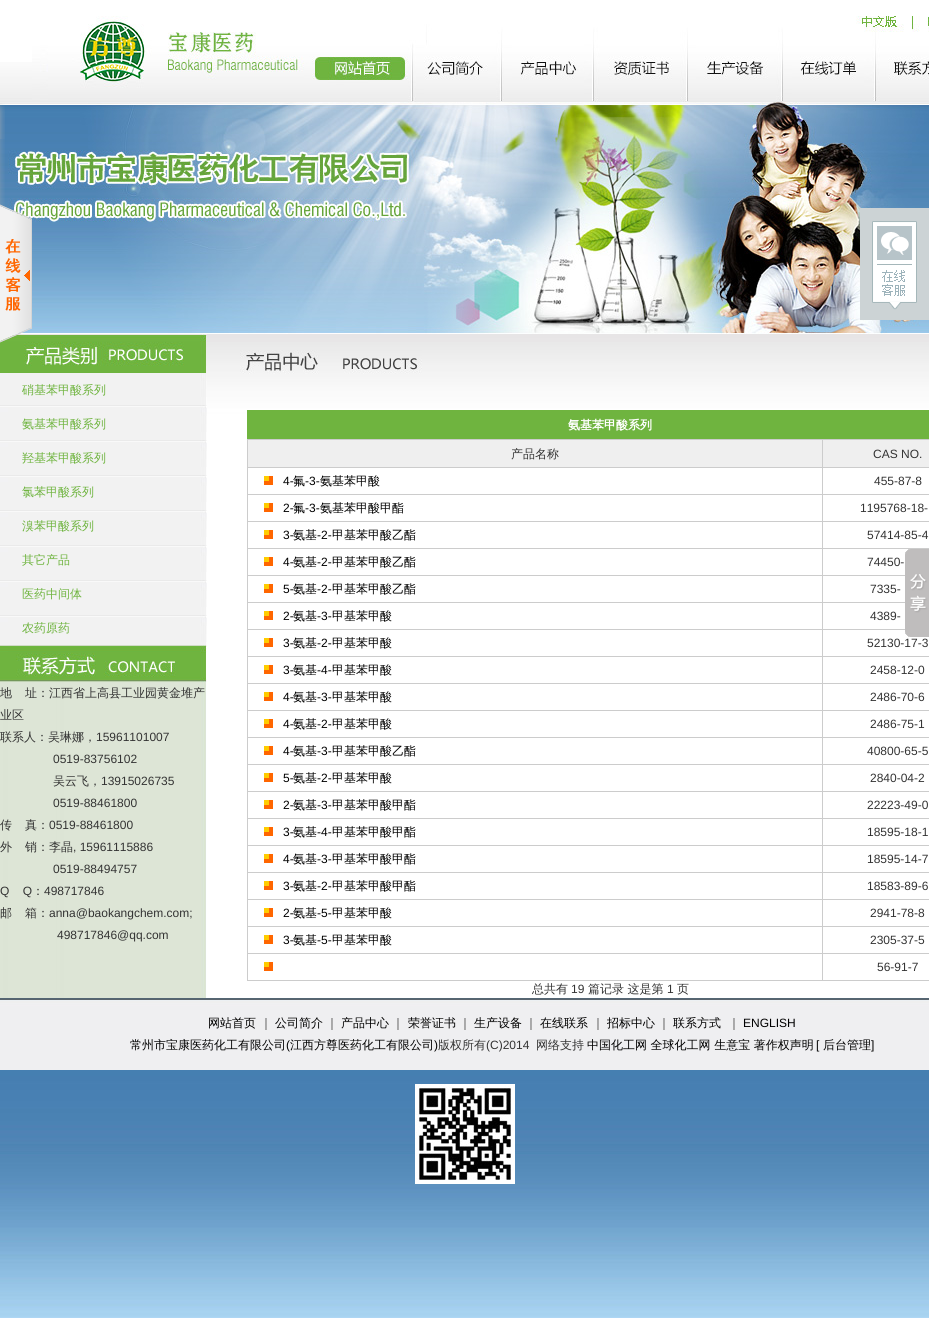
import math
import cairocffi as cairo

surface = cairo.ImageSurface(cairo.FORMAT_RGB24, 929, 1318)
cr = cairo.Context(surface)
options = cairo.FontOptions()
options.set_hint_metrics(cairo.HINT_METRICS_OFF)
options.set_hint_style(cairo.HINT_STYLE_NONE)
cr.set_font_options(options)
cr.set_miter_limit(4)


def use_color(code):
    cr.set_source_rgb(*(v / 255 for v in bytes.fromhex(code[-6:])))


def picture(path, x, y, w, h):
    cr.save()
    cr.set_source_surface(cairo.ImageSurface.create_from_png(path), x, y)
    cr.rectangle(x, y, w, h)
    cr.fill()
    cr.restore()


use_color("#ffffff")
cr.paint()
picture("img1.png", 0, 62, 929, 1256)
picture("img2.png", 32, 16, 897, 86)
picture("img3.png", 0, 107, 8, 103)
picture("img4.png", 8, 102, 921, 232)
picture("img5.png", 0, 103, 5, 36)
picture("img6.png", 0, 139, 5, 69)
picture("img11.png", 0, 334, 207, 39)
picture("img7.png", 0, 204, 32, 139)
picture("img8.png", 860, 208, 69, 112)
picture("img9.png", 207, 334, 722, 622)
picture("img10.png", 0, 682, 207, 316)
picture("img12.png", 0, 373, 207, 272)
cr.select_font_face("WenQuanYi Zen Hei Medium")
cr.set_font_size(12)
use_color("#6fb43f")
cr.move_to(22, 394)
cr.show_text("硝基苯甲酸系列")
cr.move_to(22, 428)
cr.show_text("氨基苯甲酸系列")
cr.move_to(22, 462)
cr.show_text("羟基苯甲酸系列")
cr.move_to(22, 496)
cr.show_text("氯苯甲酸系列")
cr.move_to(22, 530)
cr.show_text("溴苯甲酸系列")
cr.move_to(22, 564)
cr.show_text("其它产品")
cr.move_to(22, 598)
cr.show_text("医药中间体")
cr.move_to(22, 632)
cr.show_text("农药原药")
picture("img13.png", 0, 645, 207, 37)
use_color("#333333")
cr.move_to(0, 697)
cr.show_text("地")
cr.move_to(25, 697)
cr.show_text("址：江西省上高县工业园黄金堆产")
cr.move_to(0, 719)
cr.show_text("业区")
cr.move_to(0, 741)
cr.show_text("联系人：吴琳娜，")
cr.select_font_face("Liberation Sans")
cr.move_to(96, 741)
cr.show_text("15961101007")
cr.move_to(53, 763)
cr.show_text("0519-83756102")
cr.select_font_face("WenQuanYi Zen Hei Medium")
cr.move_to(53, 785)
cr.show_text("吴云飞，")
cr.select_font_face("Liberation Sans")
cr.move_to(101, 785)
cr.show_text("13915026735")
cr.move_to(53, 807)
cr.show_text("0519-88461800")
cr.select_font_face("WenQuanYi Zen Hei Medium")
cr.move_to(0, 829)
cr.show_text("传")
cr.move_to(25, 829)
cr.show_text("真：")
cr.select_font_face("Liberation Sans")
cr.move_to(49, 829)
cr.show_text("0519-88461800")
cr.select_font_face("WenQuanYi Zen Hei Medium")
cr.move_to(0, 851)
cr.show_text("外")
cr.move_to(25, 851)
cr.show_text("销：李晶")
cr.select_font_face("Liberation Sans")
cr.move_to(73, 851)
cr.show_text(", 15961115886")
cr.move_to(53, 873)
cr.show_text("0519-88494757")
cr.move_to(0, 895)
cr.show_text("Q    Q")
cr.select_font_face("WenQuanYi Zen Hei Medium")
cr.move_to(32, 895)
cr.show_text("：")
cr.select_font_face("Liberation Sans")
cr.move_to(44, 895)
cr.show_text("498717846")
cr.select_font_face("WenQuanYi Zen Hei Medium")
cr.move_to(0, 917)
cr.show_text("邮")
cr.move_to(25, 917)
cr.show_text("箱：")
cr.select_font_face("Liberation Sans")
cr.move_to(49, 917)
cr.show_text("anna@baokangchem.com;")
cr.move_to(57, 939)
cr.show_text("498717846@qq.com")
picture("img14.png", 240, 350, 182, 24)
use_color("#6fb43f")
cr.rectangle(247, 410, 682, 29)
cr.fill()
cr.select_font_face("WenQuanYi Zen Hei", cairo.FONT_SLANT_NORMAL, cairo.FONT_WEIGHT_BOLD)
use_color("#ffffff")
cr.move_to(568, 429)
cr.show_text("氨基苯甲酸系列")
use_color("#cccccc")
cr.rectangle(247, 439, 682, 542)
cr.fill()
use_color("#efefef")
cr.rectangle(248, 440, 574, 27)
cr.fill()
cr.select_font_face("WenQuanYi Zen Hei Medium")
use_color("#333333")
cr.move_to(511, 458)
cr.show_text("产品名称")
use_color("#efefef")
cr.rectangle(823, 440, 106, 27)
cr.fill()
cr.select_font_face("Liberation Sans")
use_color("#333333")
cr.move_to(873, 458)
cr.show_text("CAS NO.")
use_color("#ffffff")
cr.rectangle(248, 468, 574, 26)
cr.fill()
picture("img15.png", 264, 476, 9, 9)
use_color("#000000")
cr.move_to(283, 485)
cr.show_text("4-")
cr.select_font_face("WenQuanYi Zen Hei Medium")
cr.move_to(293, 485)
cr.show_text("氟")
cr.select_font_face("Liberation Sans")
cr.move_to(305, 485)
cr.show_text("-3-")
cr.select_font_face("WenQuanYi Zen Hei Medium")
cr.move_to(320, 485)
cr.show_text("氨基苯甲酸")
use_color("#ffffff")
cr.rectangle(823, 468, 106, 26)
cr.fill()
cr.select_font_face("Liberation Sans")
use_color("#333333")
cr.move_to(874, 485)
cr.show_text("455-87-8")
use_color("#ffffff")
cr.rectangle(248, 495, 574, 26)
cr.fill()
picture("img15.png", 264, 503, 9, 9)
use_color("#000000")
cr.move_to(283, 512)
cr.show_text("2-")
cr.select_font_face("WenQuanYi Zen Hei Medium")
cr.move_to(293, 512)
cr.show_text("氟")
cr.select_font_face("Liberation Sans")
cr.move_to(305, 512)
cr.show_text("-3-")
cr.select_font_face("WenQuanYi Zen Hei Medium")
cr.move_to(320, 512)
cr.show_text("氨基苯甲酸甲酯")
use_color("#ffffff")
cr.rectangle(823, 495, 106, 26)
cr.fill()
cr.select_font_face("Liberation Sans")
use_color("#333333")
cr.move_to(860, 512)
cr.show_text("1195768-18-")
use_color("#ffffff")
cr.rectangle(248, 522, 574, 26)
cr.fill()
picture("img15.png", 264, 530, 9, 9)
use_color("#000000")
cr.move_to(283, 539)
cr.show_text("3-")
cr.select_font_face("WenQuanYi Zen Hei Medium")
cr.move_to(293, 539)
cr.show_text("氨基")
cr.select_font_face("Liberation Sans")
cr.move_to(317, 539)
cr.show_text("-2-")
cr.select_font_face("WenQuanYi Zen Hei Medium")
cr.move_to(332, 539)
cr.show_text("甲基苯甲酸乙酯")
use_color("#ffffff")
cr.rectangle(823, 522, 106, 26)
cr.fill()
cr.select_font_face("Liberation Sans")
use_color("#333333")
cr.move_to(867, 539)
cr.show_text("57414-85-4")
use_color("#ffffff")
cr.rectangle(248, 549, 574, 26)
cr.fill()
picture("img15.png", 264, 557, 9, 9)
use_color("#000000")
cr.move_to(283, 566)
cr.show_text("4-")
cr.select_font_face("WenQuanYi Zen Hei Medium")
cr.move_to(293, 566)
cr.show_text("氨基")
cr.select_font_face("Liberation Sans")
cr.move_to(317, 566)
cr.show_text("-2-")
cr.select_font_face("WenQuanYi Zen Hei Medium")
cr.move_to(332, 566)
cr.show_text("甲基苯甲酸乙酯")
use_color("#ffffff")
cr.rectangle(823, 549, 85, 26)
cr.fill()
cr.select_font_face("Liberation Sans")
use_color("#333333")
cr.move_to(867, 566)
cr.show_text("74450-")
use_color("#ffffff")
cr.rectangle(248, 576, 574, 26)
cr.fill()
picture("img15.png", 264, 584, 9, 9)
use_color("#000000")
cr.move_to(283, 593)
cr.show_text("5-")
cr.select_font_face("WenQuanYi Zen Hei Medium")
cr.move_to(293, 593)
cr.show_text("氨基")
cr.select_font_face("Liberation Sans")
cr.move_to(317, 593)
cr.show_text("-2-")
cr.select_font_face("WenQuanYi Zen Hei Medium")
cr.move_to(332, 593)
cr.show_text("甲基苯甲酸乙酯")
use_color("#ffffff")
cr.rectangle(823, 576, 82, 26)
cr.fill()
cr.select_font_face("Liberation Sans")
use_color("#333333")
cr.move_to(870, 593)
cr.show_text("7335-")
use_color("#ffffff")
cr.rectangle(248, 603, 574, 26)
cr.fill()
picture("img15.png", 264, 611, 9, 9)
use_color("#000000")
cr.move_to(283, 620)
cr.show_text("2-")
cr.select_font_face("WenQuanYi Zen Hei Medium")
cr.move_to(293, 620)
cr.show_text("氨基")
cr.select_font_face("Liberation Sans")
cr.move_to(317, 620)
cr.show_text("-3-")
cr.select_font_face("WenQuanYi Zen Hei Medium")
cr.move_to(332, 620)
cr.show_text("甲基苯甲酸")
use_color("#ffffff")
cr.rectangle(823, 603, 82, 26)
cr.fill()
cr.select_font_face("Liberation Sans")
use_color("#333333")
cr.move_to(870, 620)
cr.show_text("4389-")
use_color("#ffffff")
cr.rectangle(248, 630, 574, 26)
cr.fill()
picture("img15.png", 264, 638, 9, 9)
use_color("#000000")
cr.move_to(283, 647)
cr.show_text("3-")
cr.select_font_face("WenQuanYi Zen Hei Medium")
cr.move_to(293, 647)
cr.show_text("氨基")
cr.select_font_face("Liberation Sans")
cr.move_to(317, 647)
cr.show_text("-2-")
cr.select_font_face("WenQuanYi Zen Hei Medium")
cr.move_to(332, 647)
cr.show_text("甲基苯甲酸")
use_color("#ffffff")
cr.rectangle(823, 630, 106, 26)
cr.fill()
cr.select_font_face("Liberation Sans")
use_color("#333333")
cr.move_to(867, 647)
cr.show_text("52130-17-3")
use_color("#ffffff")
cr.rectangle(248, 657, 574, 26)
cr.fill()
picture("img15.png", 264, 665, 9, 9)
use_color("#000000")
cr.move_to(283, 674)
cr.show_text("3-")
cr.select_font_face("WenQuanYi Zen Hei Medium")
cr.move_to(293, 674)
cr.show_text("氨基")
cr.select_font_face("Liberation Sans")
cr.move_to(317, 674)
cr.show_text("-4-")
cr.select_font_face("WenQuanYi Zen Hei Medium")
cr.move_to(332, 674)
cr.show_text("甲基苯甲酸")
use_color("#ffffff")
cr.rectangle(823, 657, 106, 26)
cr.fill()
cr.select_font_face("Liberation Sans")
use_color("#333333")
cr.move_to(870, 674)
cr.show_text("2458-12-0")
use_color("#ffffff")
cr.rectangle(248, 684, 574, 26)
cr.fill()
picture("img15.png", 264, 692, 9, 9)
use_color("#000000")
cr.move_to(283, 701)
cr.show_text("4-")
cr.select_font_face("WenQuanYi Zen Hei Medium")
cr.move_to(293, 701)
cr.show_text("氨基")
cr.select_font_face("Liberation Sans")
cr.move_to(317, 701)
cr.show_text("-3-")
cr.select_font_face("WenQuanYi Zen Hei Medium")
cr.move_to(332, 701)
cr.show_text("甲基苯甲酸")
use_color("#ffffff")
cr.rectangle(823, 684, 106, 26)
cr.fill()
cr.select_font_face("Liberation Sans")
use_color("#333333")
cr.move_to(870, 701)
cr.show_text("2486-70-6")
use_color("#ffffff")
cr.rectangle(248, 711, 574, 26)
cr.fill()
picture("img15.png", 264, 719, 9, 9)
use_color("#000000")
cr.move_to(283, 728)
cr.show_text("4-")
cr.select_font_face("WenQuanYi Zen Hei Medium")
cr.move_to(293, 728)
cr.show_text("氨基")
cr.select_font_face("Liberation Sans")
cr.move_to(317, 728)
cr.show_text("-2-")
cr.select_font_face("WenQuanYi Zen Hei Medium")
cr.move_to(332, 728)
cr.show_text("甲基苯甲酸")
use_color("#ffffff")
cr.rectangle(823, 711, 106, 26)
cr.fill()
cr.select_font_face("Liberation Sans")
use_color("#333333")
cr.move_to(870, 728)
cr.show_text("2486-75-1")
use_color("#ffffff")
cr.rectangle(248, 738, 574, 26)
cr.fill()
picture("img15.png", 264, 746, 9, 9)
use_color("#000000")
cr.move_to(283, 755)
cr.show_text("4-")
cr.select_font_face("WenQuanYi Zen Hei Medium")
cr.move_to(293, 755)
cr.show_text("氨基")
cr.select_font_face("Liberation Sans")
cr.move_to(317, 755)
cr.show_text("-3-")
cr.select_font_face("WenQuanYi Zen Hei Medium")
cr.move_to(332, 755)
cr.show_text("甲基苯甲酸乙酯")
use_color("#ffffff")
cr.rectangle(823, 738, 106, 26)
cr.fill()
cr.select_font_face("Liberation Sans")
use_color("#333333")
cr.move_to(867, 755)
cr.show_text("40800-65-5")
use_color("#ffffff")
cr.rectangle(248, 765, 574, 26)
cr.fill()
picture("img15.png", 264, 773, 9, 9)
use_color("#000000")
cr.move_to(283, 782)
cr.show_text("5-")
cr.select_font_face("WenQuanYi Zen Hei Medium")
cr.move_to(293, 782)
cr.show_text("氨基")
cr.select_font_face("Liberation Sans")
cr.move_to(317, 782)
cr.show_text("-2-")
cr.select_font_face("WenQuanYi Zen Hei Medium")
cr.move_to(332, 782)
cr.show_text("甲基苯甲酸")
use_color("#ffffff")
cr.rectangle(823, 765, 106, 26)
cr.fill()
cr.select_font_face("Liberation Sans")
use_color("#333333")
cr.move_to(870, 782)
cr.show_text("2840-04-2")
use_color("#ffffff")
cr.rectangle(248, 792, 574, 26)
cr.fill()
picture("img15.png", 264, 800, 9, 9)
use_color("#000000")
cr.move_to(283, 809)
cr.show_text("2-")
cr.select_font_face("WenQuanYi Zen Hei Medium")
cr.move_to(293, 809)
cr.show_text("氨基")
cr.select_font_face("Liberation Sans")
cr.move_to(317, 809)
cr.show_text("-3-")
cr.select_font_face("WenQuanYi Zen Hei Medium")
cr.move_to(332, 809)
cr.show_text("甲基苯甲酸甲酯")
use_color("#ffffff")
cr.rectangle(823, 792, 106, 26)
cr.fill()
cr.select_font_face("Liberation Sans")
use_color("#333333")
cr.move_to(867, 809)
cr.show_text("22223-49-0")
use_color("#ffffff")
cr.rectangle(248, 819, 574, 26)
cr.fill()
picture("img15.png", 264, 827, 9, 9)
use_color("#000000")
cr.move_to(283, 836)
cr.show_text("3-")
cr.select_font_face("WenQuanYi Zen Hei Medium")
cr.move_to(293, 836)
cr.show_text("氨基")
cr.select_font_face("Liberation Sans")
cr.move_to(317, 836)
cr.show_text("-4-")
cr.select_font_face("WenQuanYi Zen Hei Medium")
cr.move_to(332, 836)
cr.show_text("甲基苯甲酸甲酯")
use_color("#ffffff")
cr.rectangle(823, 819, 106, 26)
cr.fill()
cr.select_font_face("Liberation Sans")
use_color("#333333")
cr.move_to(867, 836)
cr.show_text("18595-18-1")
use_color("#ffffff")
cr.rectangle(248, 846, 574, 26)
cr.fill()
picture("img15.png", 264, 854, 9, 9)
use_color("#000000")
cr.move_to(283, 863)
cr.show_text("4-")
cr.select_font_face("WenQuanYi Zen Hei Medium")
cr.move_to(293, 863)
cr.show_text("氨基")
cr.select_font_face("Liberation Sans")
cr.move_to(317, 863)
cr.show_text("-3-")
cr.select_font_face("WenQuanYi Zen Hei Medium")
cr.move_to(332, 863)
cr.show_text("甲基苯甲酸甲酯")
use_color("#ffffff")
cr.rectangle(823, 846, 106, 26)
cr.fill()
cr.select_font_face("Liberation Sans")
use_color("#333333")
cr.move_to(867, 863)
cr.show_text("18595-14-7")
use_color("#ffffff")
cr.rectangle(248, 873, 574, 26)
cr.fill()
picture("img15.png", 264, 881, 9, 9)
use_color("#000000")
cr.move_to(283, 890)
cr.show_text("3-")
cr.select_font_face("WenQuanYi Zen Hei Medium")
cr.move_to(293, 890)
cr.show_text("氨基")
cr.select_font_face("Liberation Sans")
cr.move_to(317, 890)
cr.show_text("-2-")
cr.select_font_face("WenQuanYi Zen Hei Medium")
cr.move_to(332, 890)
cr.show_text("甲基苯甲酸甲酯")
use_color("#ffffff")
cr.rectangle(823, 873, 106, 26)
cr.fill()
cr.select_font_face("Liberation Sans")
use_color("#333333")
cr.move_to(867, 890)
cr.show_text("18583-89-6")
use_color("#ffffff")
cr.rectangle(248, 900, 574, 26)
cr.fill()
picture("img15.png", 264, 908, 9, 9)
use_color("#000000")
cr.move_to(283, 917)
cr.show_text("2-")
cr.select_font_face("WenQuanYi Zen Hei Medium")
cr.move_to(293, 917)
cr.show_text("氨基")
cr.select_font_face("Liberation Sans")
cr.move_to(317, 917)
cr.show_text("-5-")
cr.select_font_face("WenQuanYi Zen Hei Medium")
cr.move_to(332, 917)
cr.show_text("甲基苯甲酸")
use_color("#ffffff")
cr.rectangle(823, 900, 106, 26)
cr.fill()
cr.select_font_face("Liberation Sans")
use_color("#333333")
cr.move_to(870, 917)
cr.show_text("2941-78-8")
use_color("#ffffff")
cr.rectangle(248, 927, 574, 26)
cr.fill()
picture("img15.png", 264, 935, 9, 9)
use_color("#000000")
cr.move_to(283, 944)
cr.show_text("3-")
cr.select_font_face("WenQuanYi Zen Hei Medium")
cr.move_to(293, 944)
cr.show_text("氨基")
cr.select_font_face("Liberation Sans")
cr.move_to(317, 944)
cr.show_text("-5-")
cr.select_font_face("WenQuanYi Zen Hei Medium")
cr.move_to(332, 944)
cr.show_text("甲基苯甲酸")
use_color("#ffffff")
cr.rectangle(823, 927, 106, 26)
cr.fill()
cr.select_font_face("Liberation Sans")
use_color("#333333")
cr.move_to(870, 944)
cr.show_text("2305-37-5")
use_color("#ffffff")
cr.rectangle(248, 954, 574, 26)
cr.fill()
picture("img15.png", 264, 962, 9, 9)
cr.rectangle(823, 954, 106, 26)
cr.fill()
use_color("#333333")
cr.move_to(877, 971)
cr.show_text("56-91-7")
cr.select_font_face("WenQuanYi Zen Hei Medium")
cr.move_to(532, 993)
cr.show_text("总共有")
cr.select_font_face("Liberation Sans")
cr.move_to(571, 993)
cr.show_text("19")
cr.select_font_face("WenQuanYi Zen Hei Medium")
cr.move_to(588, 993)
cr.show_text("篇记录 这是第")
cr.select_font_face("Liberation Sans")
cr.move_to(667, 993)
cr.show_text("1")
cr.select_font_face("WenQuanYi Zen Hei Medium")
cr.move_to(677, 993)
cr.show_text("页")
picture("img16.png", 905, 549, 24, 88)
picture("img17.png", 0, 998, 929, 72)
use_color("#000000")
cr.move_to(208, 1027)
cr.show_text("网站首页")
use_color("#333333")
cr.move_to(260, 1027)
cr.show_text("｜")
use_color("#000000")
cr.move_to(275, 1027)
cr.show_text("公司简介")
use_color("#333333")
cr.move_to(326, 1027)
cr.show_text("｜")
use_color("#000000")
cr.move_to(341, 1027)
cr.show_text("产品中心")
use_color("#333333")
cr.move_to(392, 1027)
cr.show_text("｜")
use_color("#000000")
cr.move_to(408, 1027)
cr.show_text("荣誉证书")
use_color("#333333")
cr.move_to(459, 1027)
cr.show_text("｜")
use_color("#000000")
cr.move_to(474, 1027)
cr.show_text("生产设备")
use_color("#333333")
cr.move_to(525, 1027)
cr.show_text("｜")
use_color("#000000")
cr.move_to(540, 1027)
cr.show_text("在线联系")
use_color("#333333")
cr.move_to(592, 1027)
cr.show_text("｜")
use_color("#000000")
cr.move_to(607, 1027)
cr.show_text("招标中心")
use_color("#333333")
cr.move_to(658, 1027)
cr.show_text("｜")
use_color("#000000")
cr.move_to(673, 1027)
cr.show_text("联系方式")
use_color("#333333")
cr.move_to(728, 1027)
cr.show_text("｜")
cr.select_font_face("Liberation Sans")
use_color("#000000")
cr.move_to(743, 1027)
cr.show_text("ENGLISH")
cr.select_font_face("WenQuanYi Zen Hei Medium")
cr.move_to(130, 1049)
cr.show_text("常州市宝康医药化工有限公司")
cr.select_font_face("Liberation Sans")
cr.move_to(286, 1049)
cr.show_text("(")
cr.select_font_face("WenQuanYi Zen Hei Medium")
cr.move_to(290, 1049)
cr.show_text("江西方尊医药化工有限公司")
cr.select_font_face("Liberation Sans")
cr.move_to(434, 1049)
cr.show_text(")")
cr.select_font_face("WenQuanYi Zen Hei Medium")
use_color("#333333")
cr.move_to(438, 1049)
cr.show_text("版权所有")
cr.select_font_face("Liberation Sans")
cr.move_to(486, 1049)
cr.show_text("(C)2014")
cr.select_font_face("WenQuanYi Zen Hei Medium")
cr.move_to(536, 1049)
cr.show_text("网络支持")
use_color("#000000")
cr.move_to(587, 1049)
cr.show_text("中国化工网 全球化工网 生意宝 著作权声明")
cr.select_font_face("Liberation Sans")
cr.move_to(816, 1049)
cr.show_text("[")
cr.select_font_face("WenQuanYi Zen Hei Medium")
cr.move_to(823, 1049)
cr.show_text("后台管理")
cr.select_font_face("Liberation Sans")
cr.move_to(871, 1049)
cr.show_text("]")
picture("img18.png", 415, 1084, 100, 100)
surface.write_to_png("result.png")
